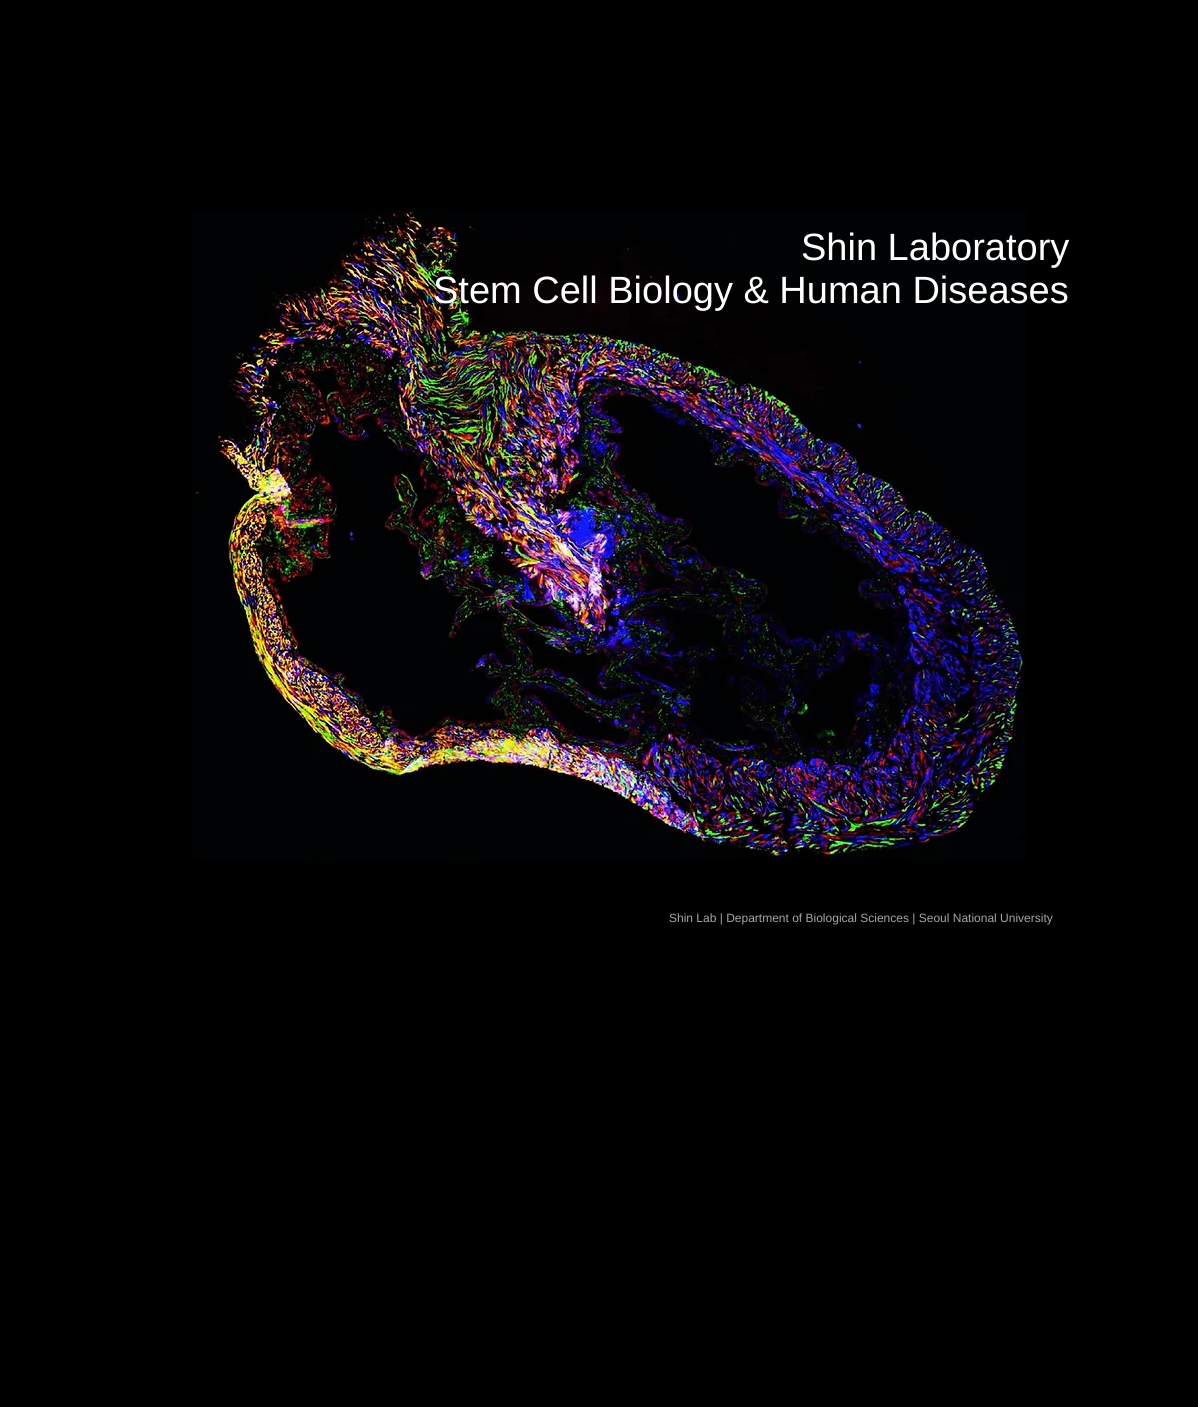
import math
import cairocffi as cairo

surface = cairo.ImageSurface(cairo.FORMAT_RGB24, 1198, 1407)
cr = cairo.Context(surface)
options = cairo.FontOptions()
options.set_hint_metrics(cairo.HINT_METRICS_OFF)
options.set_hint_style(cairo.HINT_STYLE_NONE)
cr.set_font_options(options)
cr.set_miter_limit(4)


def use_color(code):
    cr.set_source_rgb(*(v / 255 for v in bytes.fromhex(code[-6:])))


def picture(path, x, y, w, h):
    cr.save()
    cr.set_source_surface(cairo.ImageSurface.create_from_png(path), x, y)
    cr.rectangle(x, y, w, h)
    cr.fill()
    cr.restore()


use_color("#000000")
cr.paint()
picture("img1.png", 193, 210, 833, 649)
cr.select_font_face("Liberation Sans")
cr.set_font_size(38)
use_color("#ffffff")
cr.move_to(801, 260)
cr.show_text("Shin Laboratory")
cr.move_to(433, 303)
cr.show_text("Stem Cell Biology & Human Diseases")
cr.set_font_size(12)
use_color("#a6a6a6")
cr.move_to(669, 922)
cr.show_text("Shin Lab | Department of Biological Sciences | Seoul National University")
surface.write_to_png("result.png")
